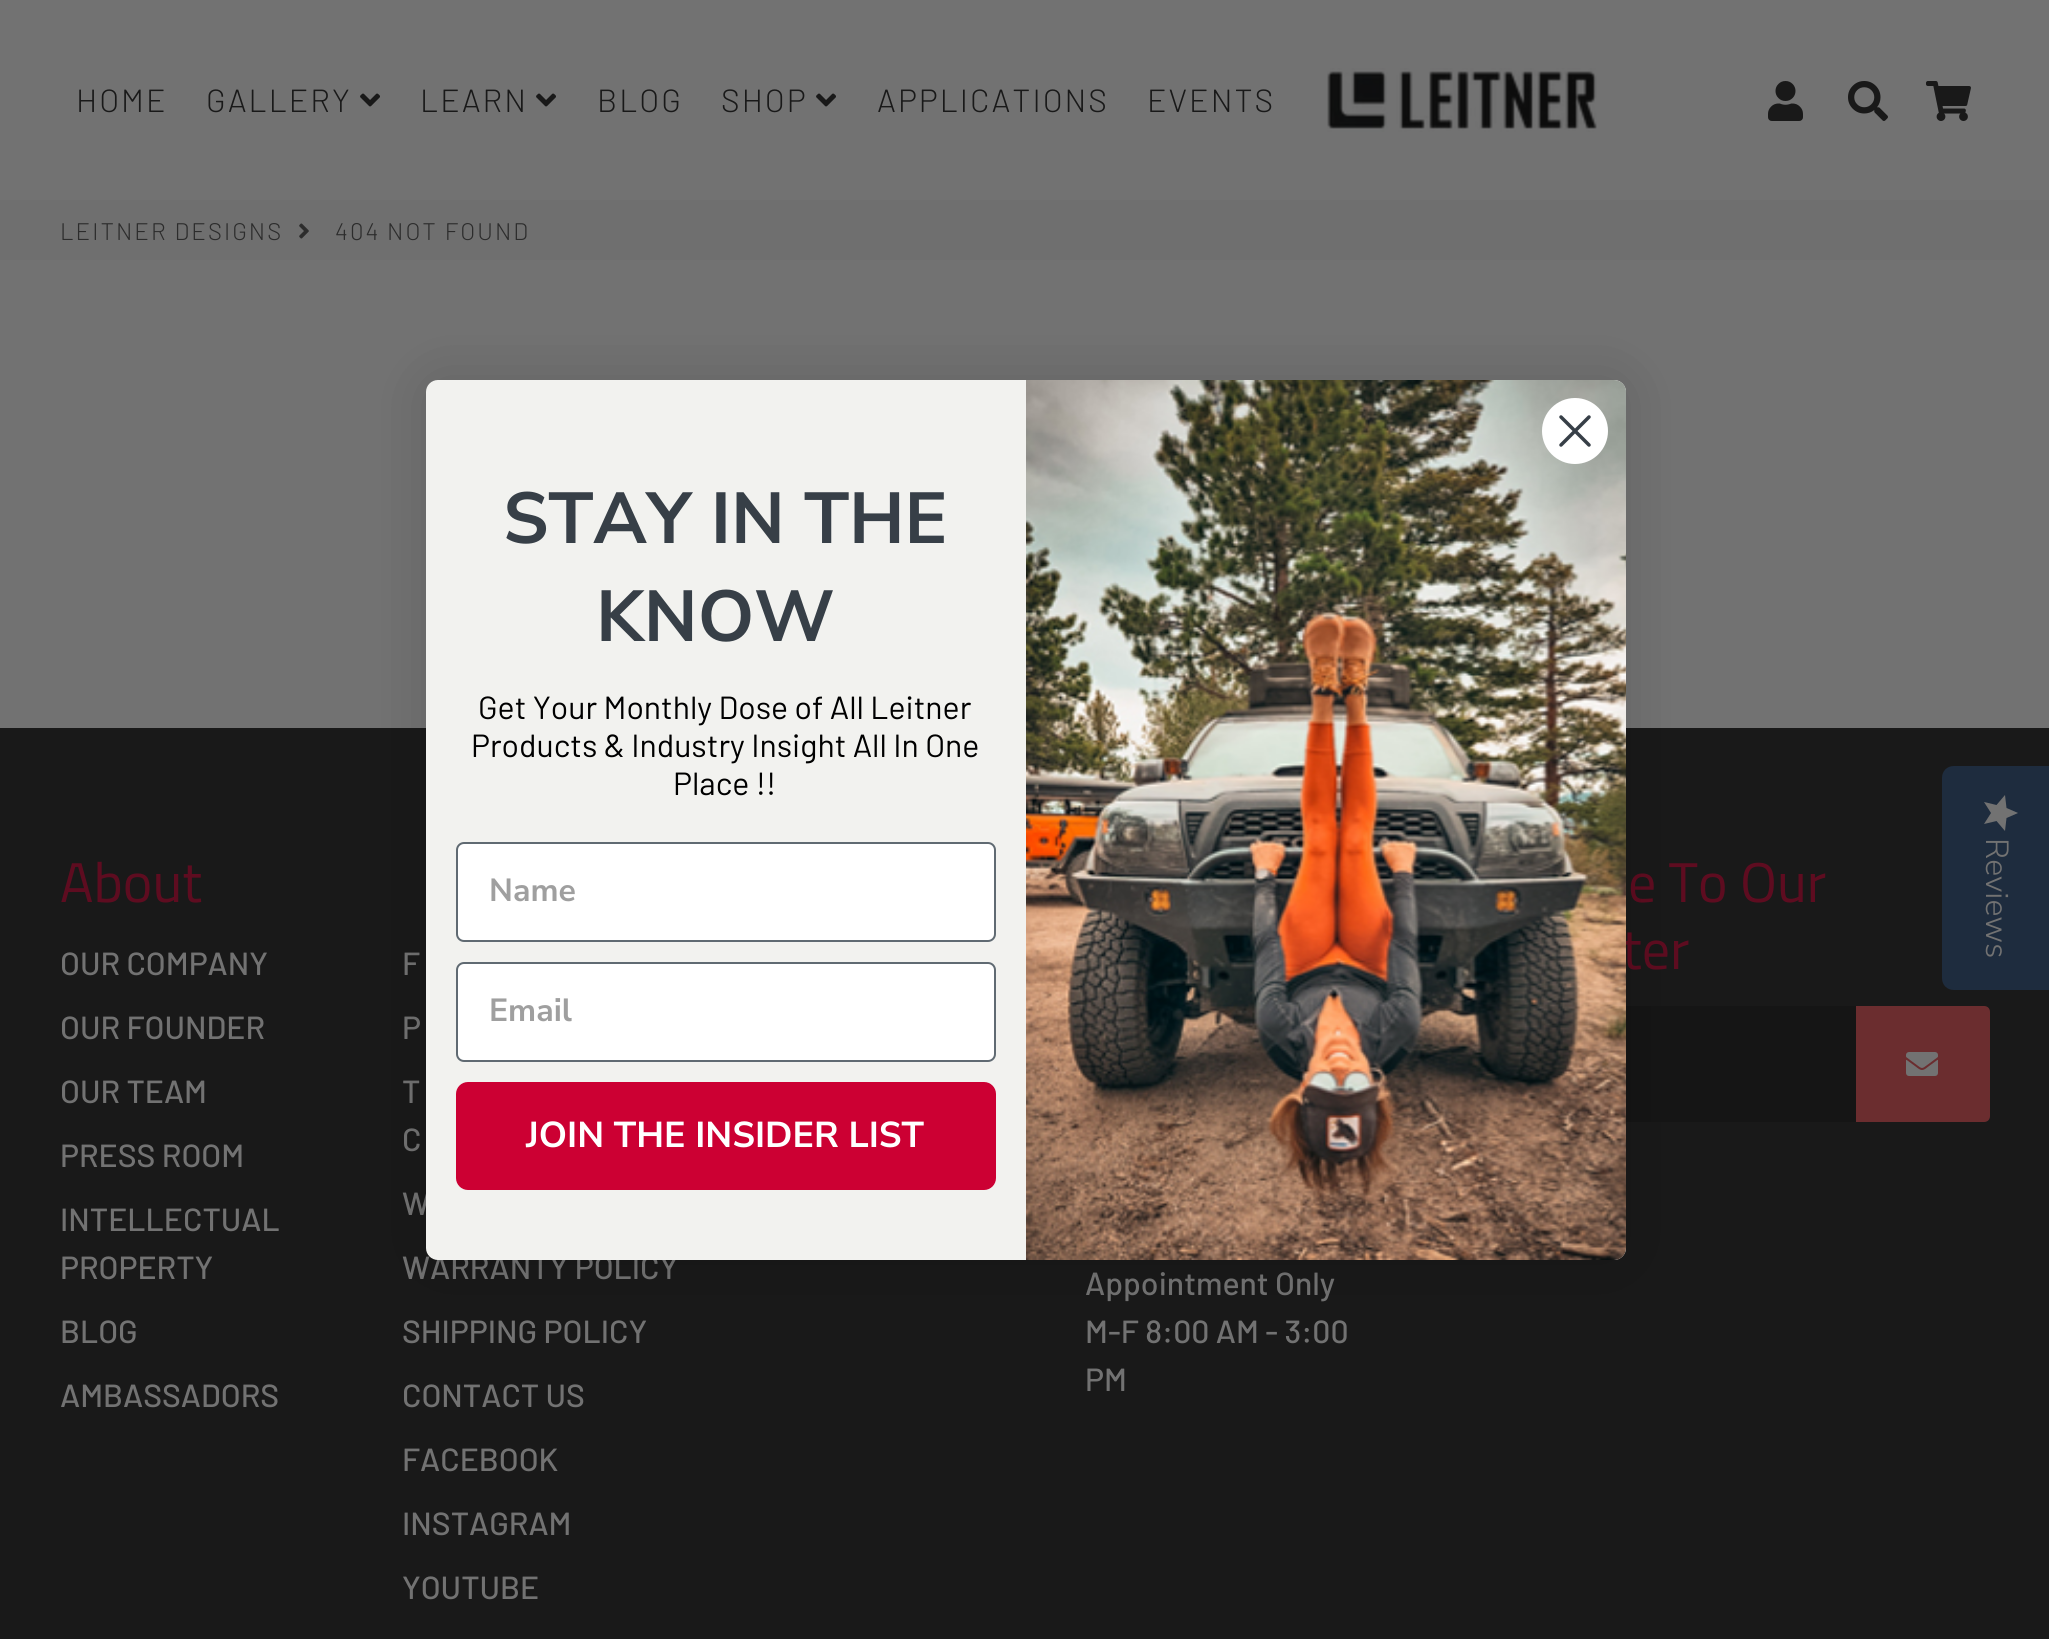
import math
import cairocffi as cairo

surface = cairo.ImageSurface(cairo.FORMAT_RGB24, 2049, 1639)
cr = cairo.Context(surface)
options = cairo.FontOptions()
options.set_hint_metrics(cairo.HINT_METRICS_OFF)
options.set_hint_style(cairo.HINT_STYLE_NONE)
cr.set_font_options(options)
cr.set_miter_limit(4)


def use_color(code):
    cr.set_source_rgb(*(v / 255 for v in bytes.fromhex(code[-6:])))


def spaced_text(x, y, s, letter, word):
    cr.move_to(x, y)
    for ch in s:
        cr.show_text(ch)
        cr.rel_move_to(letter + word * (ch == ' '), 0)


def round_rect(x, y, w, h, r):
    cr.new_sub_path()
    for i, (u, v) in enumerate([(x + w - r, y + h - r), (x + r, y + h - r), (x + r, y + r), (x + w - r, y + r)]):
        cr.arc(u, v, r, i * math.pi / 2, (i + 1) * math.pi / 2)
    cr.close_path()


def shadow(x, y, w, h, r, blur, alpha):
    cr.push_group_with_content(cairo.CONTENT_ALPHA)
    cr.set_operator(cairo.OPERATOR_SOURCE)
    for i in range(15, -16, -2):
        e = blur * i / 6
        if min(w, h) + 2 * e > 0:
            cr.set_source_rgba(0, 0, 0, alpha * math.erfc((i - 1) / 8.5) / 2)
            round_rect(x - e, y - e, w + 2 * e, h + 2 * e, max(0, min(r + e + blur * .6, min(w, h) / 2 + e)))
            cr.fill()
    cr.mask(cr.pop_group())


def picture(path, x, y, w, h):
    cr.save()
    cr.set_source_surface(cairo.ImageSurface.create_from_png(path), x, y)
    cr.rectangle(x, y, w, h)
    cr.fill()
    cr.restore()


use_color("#727272")
cr.paint()
cr.select_font_face("Barlow Light")
cr.set_font_size(32)
use_color("#191919")
spaced_text(76, 112, "HOME", 2, 0)
spaced_text(206, 112, "GALLERY", 2, 0)
picture("img1.png", 360, 93, 20, 14)
spaced_text(420, 112, "LEARN", 2, 0)
picture("img1.png", 536, 93, 20, 14)
spaced_text(597, 112, "BLOG", 2, 0)
spaced_text(721, 112, "SHOP", 2, 0)
picture("img1.png", 816, 93, 20, 14)
spaced_text(877, 112, "APPLICATIONS", 2, 0)
spaced_text(1147, 112, "EVENTS", 2, 0)
picture("img2.png", 1327, 68, 270, 64)
picture("img3.png", 1768, 81, 35, 40)
picture("img4.png", 1848, 81, 40, 40)
picture("img5.png", 1926, 81, 45, 40)
use_color("#6f6f6f")
cr.rectangle(0, 200, 2049, 60)
cr.fill()
cr.set_font_size(24)
use_color("#2c2c2c")
spaced_text(60, 240, "LEITNER DESIGNS", 2, 0)
picture("img6.png", 299, 223, 10, 16)
spaced_text(335, 240, "404 NOT FOUND", 2, 0)
use_color("#191919")
cr.rectangle(0, 728, 2049, 911)
cr.fill()
cr.select_font_face("Titillium Web")
cr.set_font_size(56)
use_color("#5e0c20")
cr.move_to(60, 902)
cr.show_text("About")
cr.select_font_face("Barlow Medium")
cr.set_font_size(32)
use_color("#727272")
cr.move_to(60, 975)
cr.show_text("OUR COMPANY")
cr.move_to(60, 1039)
cr.show_text("OUR FOUNDER")
cr.move_to(60, 1103)
cr.show_text("OUR TEAM")
cr.move_to(60, 1167)
cr.show_text("PRESS ROOM")
cr.move_to(60, 1231)
cr.show_text("INTELLECTUAL")
cr.move_to(60, 1279)
cr.show_text("PROPERTY")
cr.move_to(60, 1343)
cr.show_text("BLOG")
cr.move_to(60, 1407)
cr.show_text("AMBASSADORS")
cr.select_font_face("Titillium Web")
cr.set_font_size(56)
use_color("#5e0c20")
cr.move_to(1628, 902)
cr.show_text("e To Our")
cr.move_to(1622, 969)
cr.show_text("ter")
use_color("#151515")
cr.rectangle(1626, 1008, 228, 112)
cr.fill()
cr.rectangle(1427, 1007, 428, 114)
cr.stroke()
use_color("#6b2d2f")
cr.new_path()
cr.move_to(1857, 1007)
cr.line_to(1984, 1007)
cr.curve_to(1987, 1007, 1989, 1009, 1989, 1012)
cr.line_to(1989, 1116)
cr.curve_to(1989, 1119, 1987, 1121, 1984, 1121)
cr.line_to(1857, 1121)
cr.close_path()
cr.fill_preserve()
cr.stroke()
picture("img7.png", 1906, 1052, 32, 24)
cr.select_font_face("Barlow Medium")
cr.set_font_size(32)
use_color("#727272")
cr.move_to(402, 975)
cr.show_text("F")
cr.move_to(402, 1039)
cr.show_text("P")
cr.move_to(402, 1103)
cr.show_text("T")
cr.move_to(402, 1151)
cr.show_text("C")
cr.move_to(402, 1215)
cr.show_text("W")
cr.move_to(402, 1279)
cr.show_text("WARRANTY POLICY")
cr.move_to(402, 1343)
cr.show_text("SHIPPING POLICY")
cr.move_to(402, 1407)
cr.show_text("CONTACT US")
cr.move_to(402, 1471)
cr.show_text("FACEBOOK")
cr.move_to(402, 1535)
cr.show_text("INSTAGRAM")
cr.move_to(402, 1599)
cr.show_text("YOUTUBE")
cr.move_to(1085, 1295)
cr.show_text("Appointment Only")
cr.move_to(1085, 1343)
cr.show_text("M-F 8:00 AM - 3:00")
cr.move_to(1085, 1391)
cr.show_text("PM")
use_color("#000000")
shadow(426, 380, 1200, 880, 12, 30, 0.15)
use_color("#f2f2ef")
round_rect(426, 380, 1200, 880, 12)
cr.fill()
picture("img8.png", 1026, 380, 600, 880)
use_color("#ffffff")
cr.arc(1575, 431, 33, 0, 2 * math.pi)
cr.fill()
cr.new_path()
cr.move_to(1561, 417)
cr.line_to(1589, 445)
cr.move_to(1561, 445)
cr.line_to(1589, 417)
cr.close_path()
use_color("#373f47")
cr.set_line_width(3.5)
cr.set_line_cap(cairo.LINE_CAP_ROUND)
cr.set_line_join(cairo.LINE_JOIN_ROUND)
cr.stroke()
cr.select_font_face("Nunito Sans", cairo.FONT_SLANT_NORMAL, cairo.FONT_WEIGHT_BOLD)
cr.set_font_size(72)
cr.move_to(503, 543)
cr.show_text("STAY IN THE")
cr.move_to(596, 641)
cr.show_text("KNOW")
cr.select_font_face("Barlow")
cr.set_font_size(32)
use_color("#000000")
cr.move_to(478, 719)
cr.show_text("Get Your Monthly Dose of All Leitner")
cr.move_to(471, 757)
cr.show_text("Products & Industry Insight All In One")
cr.move_to(673, 795)
cr.show_text("Place !!")
use_color("#ffffff")
round_rect(457, 843, 538, 98, 7)
cr.fill_preserve()
use_color("#606a72")
cr.set_line_width(2)
cr.set_line_cap(cairo.LINE_CAP_BUTT)
cr.set_line_join(cairo.LINE_JOIN_MITER)
cr.stroke()
cr.select_font_face("Nunito Sans", cairo.FONT_SLANT_NORMAL, cairo.FONT_WEIGHT_BOLD)
use_color("#9f9f9f")
cr.move_to(489, 901)
cr.show_text("Name")
use_color("#ffffff")
round_rect(457, 963, 538, 98, 7)
cr.fill_preserve()
use_color("#606a72")
cr.stroke()
use_color("#9f9f9f")
cr.move_to(489, 1021)
cr.show_text("Email")
use_color("#cc0033")
round_rect(456, 1082, 540, 108, 12)
cr.fill()
cr.set_font_size(36)
use_color("#ffffff")
cr.move_to(526, 1147)
cr.show_text("JOIN THE INSIDER LIST")
use_color("#1e2c3e")
cr.new_path()
cr.move_to(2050, 766)
cr.line_to(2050, 990)
cr.line_to(1954, 990)
cr.curve_to(1947, 990, 1942, 985, 1942, 978)
cr.line_to(1942, 778)
cr.curve_to(1942, 771, 1947, 766, 1954, 766)
cr.close_path()
cr.fill()
gradient = cairo.LinearGradient(2018, 795, 2018, 831)
gradient.add_color_stop_rgba(1, 0.447, 0.447, 0.447, 1)
gradient.add_color_stop_rgba(1, 0.416, 0.416, 0.416, 1)
cr.set_source(gradient)
cr.new_path()
cr.move_to(1991, 813)
cr.line_to(1984, 824)
cr.line_to(1996.5, 821)
cr.line_to(2005, 831)
cr.line_to(2006.5, 818)
cr.line_to(2018, 813)
cr.line_to(2006.5, 808)
cr.line_to(2005, 795)
cr.line_to(1996.5, 805)
cr.line_to(1984, 802)
cr.close_path()
cr.fill()
cr.select_font_face("Nunito Sans Light")
cr.set_font_size(32)
use_color("#727272")
cr.save()
cr.translate(1986, 838)
cr.rotate(90 * math.pi / 180)
cr.move_to(0, 0)
cr.show_text("Reviews")
cr.restore()
surface.write_to_png("result.png")
